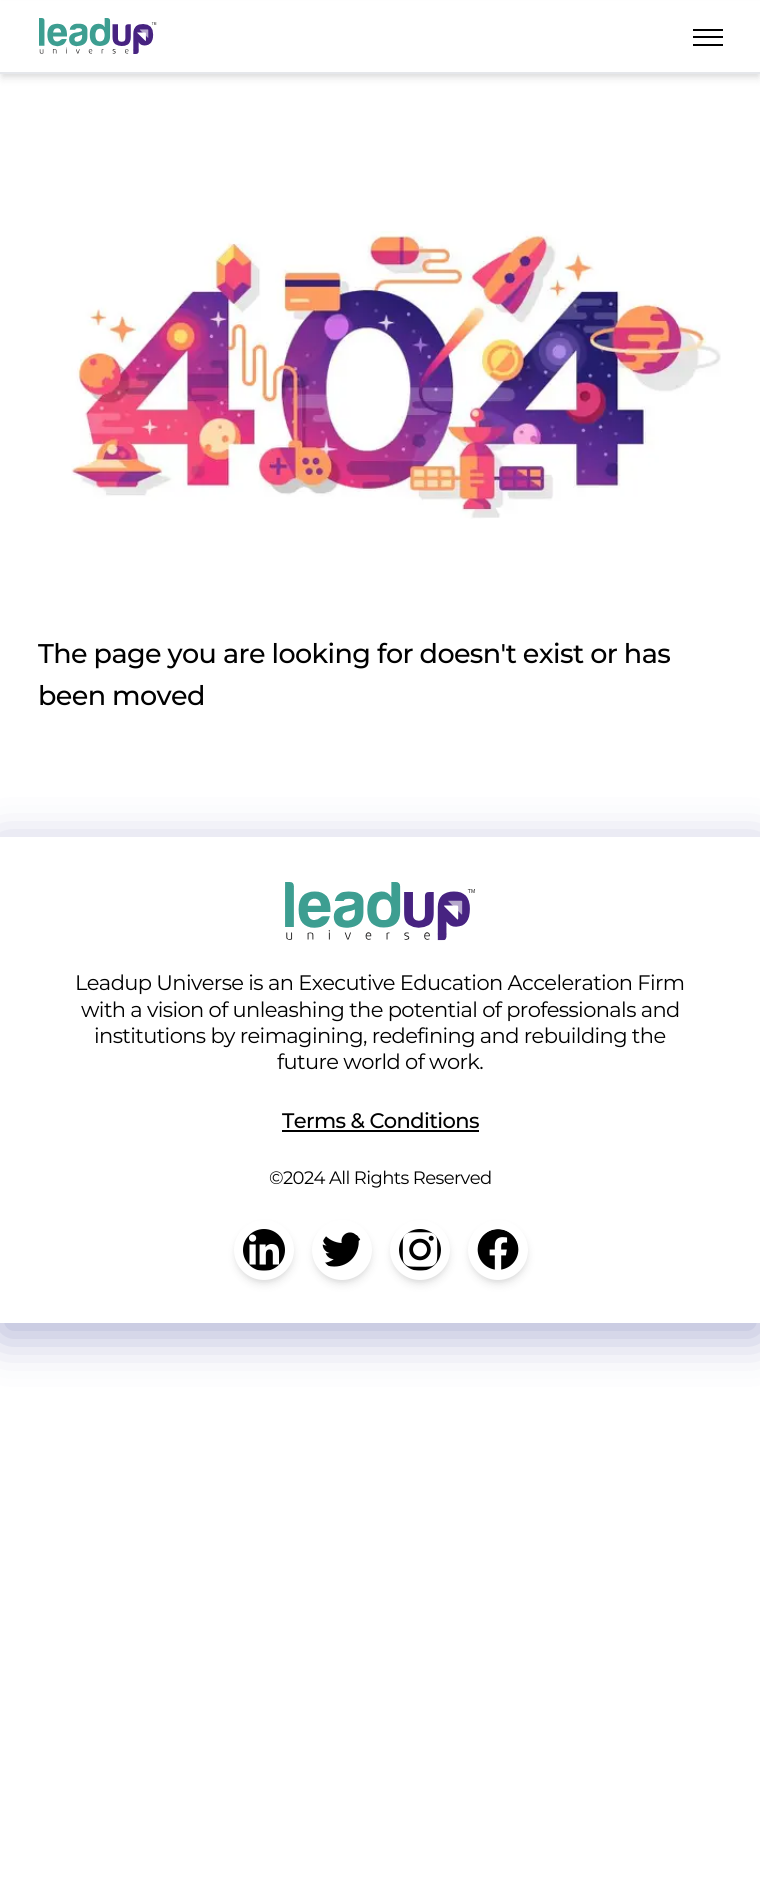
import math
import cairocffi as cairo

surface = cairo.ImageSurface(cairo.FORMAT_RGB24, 760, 1897)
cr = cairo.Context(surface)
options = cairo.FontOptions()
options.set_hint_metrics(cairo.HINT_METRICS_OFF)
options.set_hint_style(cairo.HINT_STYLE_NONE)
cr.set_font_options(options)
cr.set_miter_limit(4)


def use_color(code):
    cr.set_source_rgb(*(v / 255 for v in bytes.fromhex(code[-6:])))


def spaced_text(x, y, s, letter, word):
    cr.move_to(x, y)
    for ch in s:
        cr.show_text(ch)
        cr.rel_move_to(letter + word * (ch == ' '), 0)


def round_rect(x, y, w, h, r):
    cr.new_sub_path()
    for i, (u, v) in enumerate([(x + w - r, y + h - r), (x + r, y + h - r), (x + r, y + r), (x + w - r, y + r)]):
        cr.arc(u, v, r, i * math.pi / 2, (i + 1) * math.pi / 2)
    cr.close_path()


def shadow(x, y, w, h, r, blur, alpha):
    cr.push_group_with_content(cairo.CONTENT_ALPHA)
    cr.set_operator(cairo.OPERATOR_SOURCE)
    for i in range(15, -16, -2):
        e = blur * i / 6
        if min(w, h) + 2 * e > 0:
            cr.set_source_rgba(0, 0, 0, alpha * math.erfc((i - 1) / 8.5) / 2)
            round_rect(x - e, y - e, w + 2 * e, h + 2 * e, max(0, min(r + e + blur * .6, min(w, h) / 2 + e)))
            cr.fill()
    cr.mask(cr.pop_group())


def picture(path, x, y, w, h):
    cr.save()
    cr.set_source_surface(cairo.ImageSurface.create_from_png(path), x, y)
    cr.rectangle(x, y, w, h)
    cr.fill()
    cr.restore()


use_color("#ffffff")
cr.paint()
use_color("#000000")
shadow(3, 6, 755, 68, 0, 3, 0.1)
shadow(2, 8, 757, 70, 0, 4.5, 0.1)
use_color("#ffffff")
cr.rectangle(0, 1, 760, 71)
cr.fill()
use_color("#e5e7eb")
cr.rectangle(0, 72, 760, 2)
cr.fill()
picture("img1.png", 39, 18, 118, 36)
use_color("#000000")
cr.rectangle(693, 29, 30, 2)
cr.fill()
cr.rectangle(693, 36, 30, 2)
cr.fill()
cr.rectangle(693, 44, 30, 2)
cr.fill()
picture("img2.png", 71, 231, 650, 288)
cr.select_font_face("Montserrat Medium")
cr.set_font_size(27)
spaced_text(38, 663, "The page you are looking for doesn't exist or has", -0.6, 0)
spaced_text(38, 705, "been moved", -0.6, 0)
cr.save()
cr.set_fill_rule(cairo.FILL_RULE_EVEN_ODD)
cr.new_path()
cr.move_to(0, 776)
cr.line_to(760, 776)
cr.line_to(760, 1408)
cr.line_to(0, 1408)
cr.close_path()
cr.move_to(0, 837)
cr.line_to(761, 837)
cr.line_to(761, 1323)
cr.line_to(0, 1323)
cr.close_path()
cr.clip()
use_color("#1f2687")
shadow(0, 849, 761, 486, 0, 24, 0.37)
cr.restore()
picture("img3.png", 285, 882, 190, 59)
cr.select_font_face("Montserrat")
cr.set_font_size(21)
spaced_text(75, 990, "Leadup Universe is an Executive Education Acceleration Firm", -0.6, 0)
spaced_text(81, 1017, "with a vision of unleashing the potential of professionals and", -0.6, 0)
spaced_text(94, 1043, "institutions by reimagining, redefining and rebuilding the", -0.6, 0)
spaced_text(277, 1069, "future world of work.", -0.6, 0)
cr.select_font_face("Montserrat Medium")
spaced_text(282, 1128, "Terms & Conditions", -0.6, 0)
cr.rectangle(282, 1130, 197, 2)
cr.fill()
cr.select_font_face("Montserrat")
cr.set_font_size(18)
spaced_text(269, 1184, "©2024 All Rights Reserved", -0.6, 0)
use_color("#000000")
shadow(237, 1226, 54, 54, 27, 3, 0.1)
shadow(236, 1227, 57, 57, 28.5, 4.5, 0.1)
use_color("#ffffff")
cr.arc(264, 1250, 30, 0, 2 * math.pi)
cr.fill()
picture("img4.png", 243, 1229, 42, 42)
use_color("#000000")
shadow(315, 1226, 54, 54, 27, 3, 0.1)
shadow(314, 1227, 57, 57, 28.5, 4.5, 0.1)
use_color("#ffffff")
cr.arc(342, 1250, 30, 0, 2 * math.pi)
cr.fill()
picture("img5.png", 322, 1232, 39, 35)
use_color("#000000")
shadow(393, 1226, 54, 54, 27, 3, 0.1)
shadow(392, 1227, 57, 57, 28.5, 4.5, 0.1)
use_color("#ffffff")
cr.arc(420, 1250, 30, 0, 2 * math.pi)
cr.fill()
picture("img6.png", 399, 1229, 42, 42)
use_color("#000000")
shadow(471, 1226, 54, 54, 27, 3, 0.1)
shadow(470, 1227, 57, 57, 28.5, 4.5, 0.1)
use_color("#ffffff")
cr.arc(498, 1250, 30, 0, 2 * math.pi)
cr.fill()
picture("img7.png", 477, 1229, 42, 41)
surface.write_to_png("result.png")
